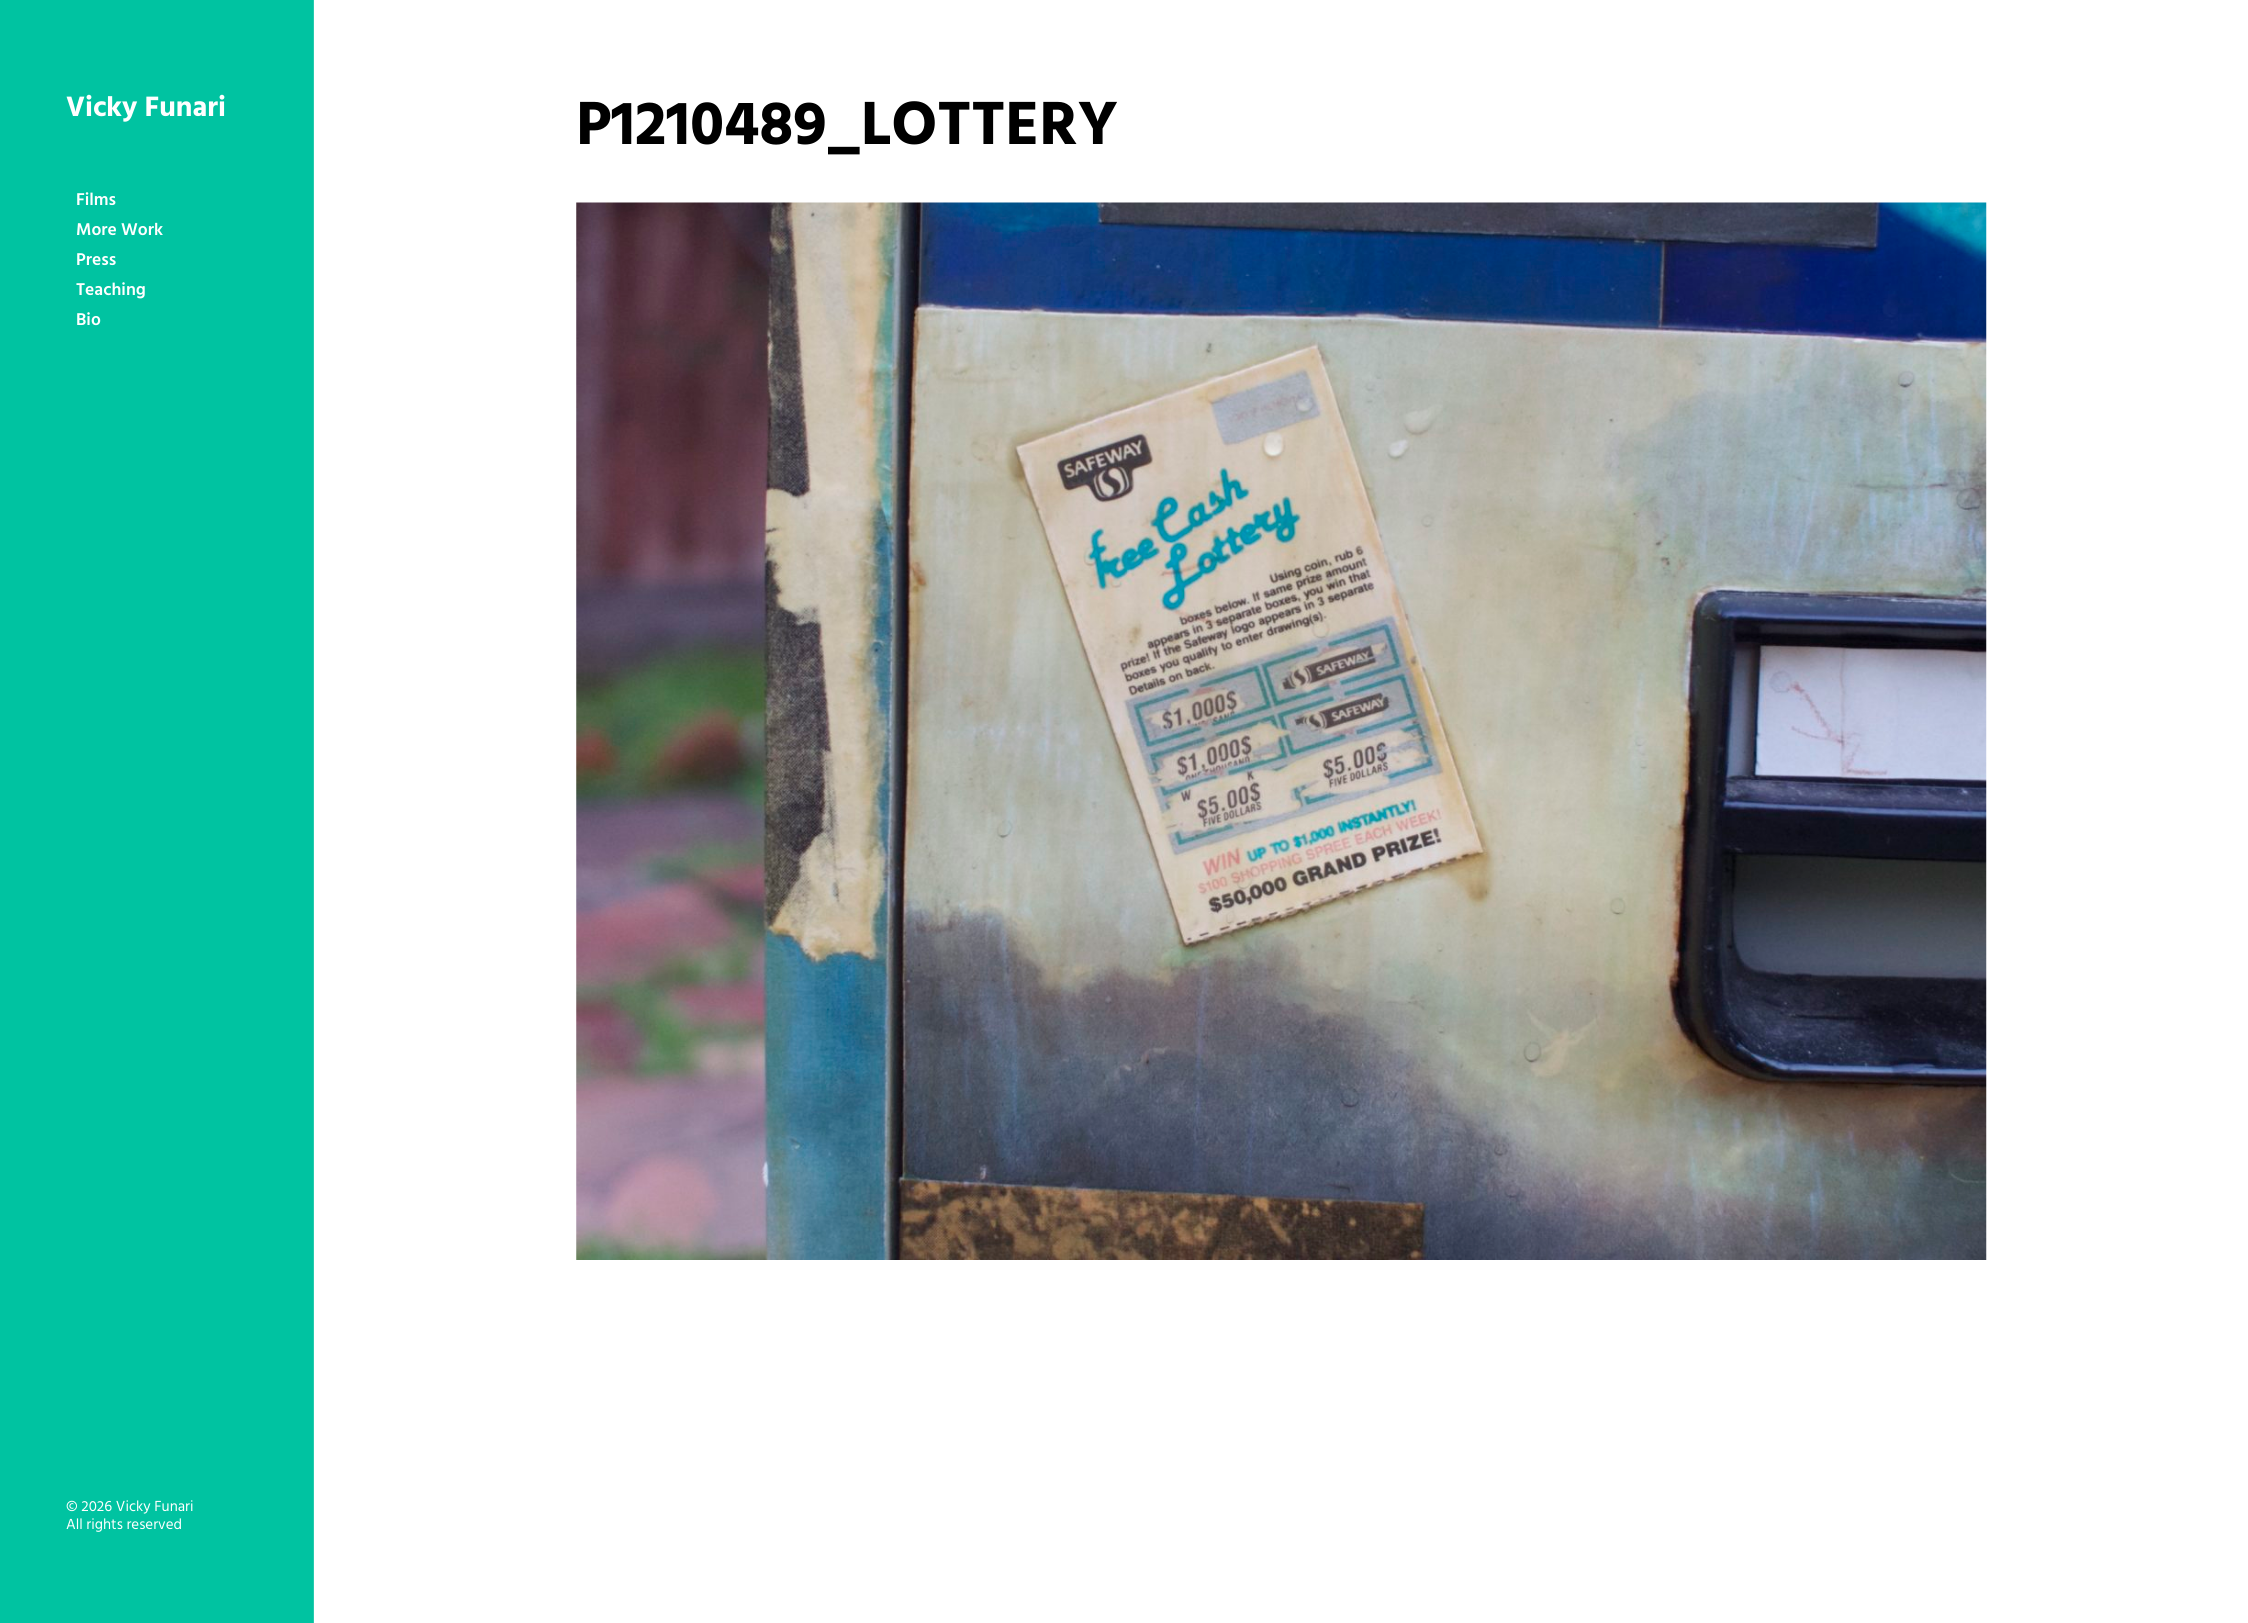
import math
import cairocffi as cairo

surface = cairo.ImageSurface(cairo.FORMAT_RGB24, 2248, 1623)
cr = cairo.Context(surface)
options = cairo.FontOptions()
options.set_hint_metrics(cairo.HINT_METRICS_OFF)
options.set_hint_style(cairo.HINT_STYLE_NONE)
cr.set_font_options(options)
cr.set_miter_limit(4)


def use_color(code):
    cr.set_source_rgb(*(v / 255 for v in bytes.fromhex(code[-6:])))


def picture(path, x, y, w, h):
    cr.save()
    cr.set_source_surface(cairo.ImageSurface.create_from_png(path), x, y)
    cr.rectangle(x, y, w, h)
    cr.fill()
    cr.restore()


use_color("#ffffff")
cr.paint()
use_color("#00c3a1")
cr.rectangle(0, 0, 313, 1623)
cr.fill()
use_color("#26caae")
cr.rectangle(313, 0, 1, 1623)
cr.fill()
cr.select_font_face("Hind", cairo.FONT_SLANT_NORMAL, cairo.FONT_WEIGHT_BOLD)
cr.set_font_size(28.75)
use_color("#ffffff")
cr.move_to(66, 116)
cr.show_text("Vicky Funari")
cr.select_font_face("Hind SemiBold")
cr.set_font_size(17.5)
cr.move_to(76, 205)
cr.show_text("Films")
cr.move_to(76, 235)
cr.show_text("More Work")
cr.move_to(76, 265)
cr.show_text("Press")
cr.move_to(76, 295)
cr.show_text("Teaching")
cr.move_to(76, 325)
cr.show_text("Bio")
cr.select_font_face("Hind")
cr.set_font_size(15)
cr.move_to(66, 1511)
cr.show_text("© 2026 Vicky Funari")
cr.move_to(66, 1529)
cr.show_text("All rights reserved")
cr.select_font_face("Hind", cairo.FONT_SLANT_NORMAL, cairo.FONT_WEIGHT_BOLD)
cr.set_font_size(62.5)
use_color("#000000")
cr.move_to(576, 144)
cr.show_text("P1210489_LOTTERY")
picture("img1.png", 576, 202, 1411, 1058)
surface.write_to_png("result.png")
